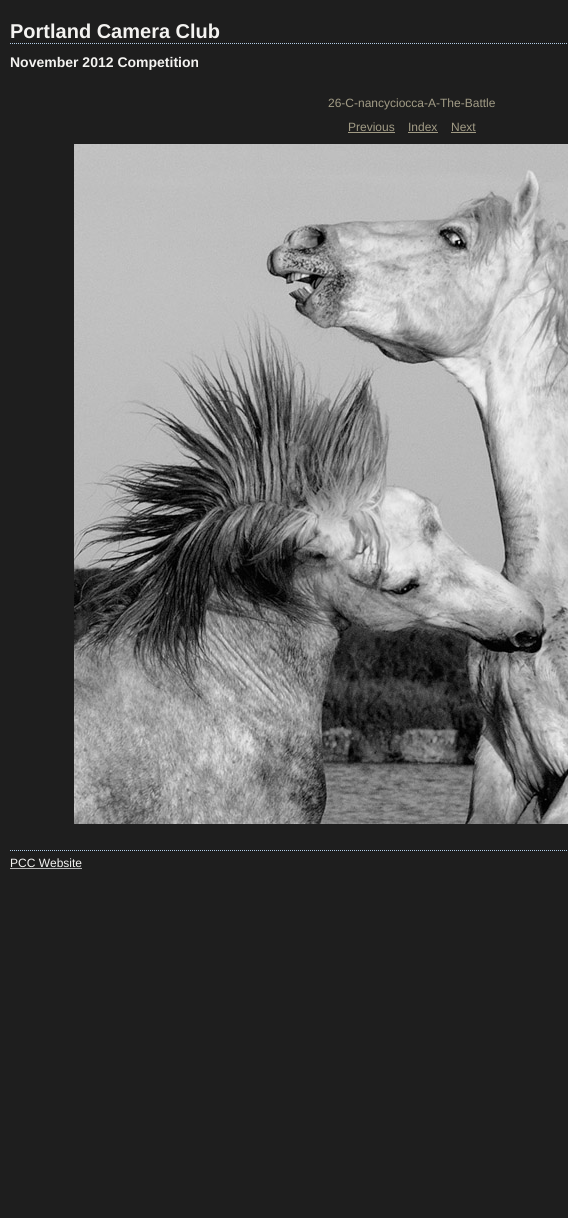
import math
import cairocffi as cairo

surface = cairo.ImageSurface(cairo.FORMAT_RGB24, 568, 1218)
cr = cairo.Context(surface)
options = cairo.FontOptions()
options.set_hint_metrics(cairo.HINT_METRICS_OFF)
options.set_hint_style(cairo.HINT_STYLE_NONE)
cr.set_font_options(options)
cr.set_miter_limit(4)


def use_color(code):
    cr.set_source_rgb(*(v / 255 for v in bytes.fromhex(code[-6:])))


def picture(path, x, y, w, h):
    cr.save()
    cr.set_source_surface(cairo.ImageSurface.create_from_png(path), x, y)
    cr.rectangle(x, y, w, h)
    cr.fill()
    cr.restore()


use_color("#1e1e1e")
cr.paint()
cr.new_path()
cr.move_to(10, 43.5)
cr.line_to(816, 43.5)
use_color("#b1cee8")
cr.set_line_width(1)
cr.set_dash([1, 1])
cr.stroke()
cr.select_font_face("Liberation Sans", cairo.FONT_SLANT_NORMAL, cairo.FONT_WEIGHT_BOLD)
cr.set_font_size(20)
use_color("#f4f3f1")
cr.move_to(10, 38)
cr.show_text("Portland Camera Club")
cr.set_font_size(14)
cr.move_to(10, 67)
cr.show_text("November 2012 Competition")
cr.new_path()
cr.move_to(10, 850.5)
cr.line_to(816, 850.5)
use_color("#b1cee8")
cr.stroke()
cr.select_font_face("Liberation Sans")
cr.set_font_size(12)
use_color("#a19b85")
cr.move_to(328, 107)
cr.show_text("26-C-nancyciocca-A-The-Battle")
cr.move_to(348, 131)
cr.show_text("Previous")
cr.rectangle(348, 132, 47, 1)
cr.fill()
cr.move_to(408, 131)
cr.show_text("Index")
cr.rectangle(408, 132, 30, 1)
cr.fill()
cr.move_to(451, 131)
cr.show_text("Next")
cr.rectangle(451, 132, 25, 1)
cr.fill()
picture("img1.png", 74, 144, 494, 680)
use_color("#f4f3f1")
cr.move_to(10, 867)
cr.show_text("PCC Website")
use_color("#b3b3b3")
cr.rectangle(10, 868, 72, 1)
cr.fill()
surface.write_to_png("result.png")
